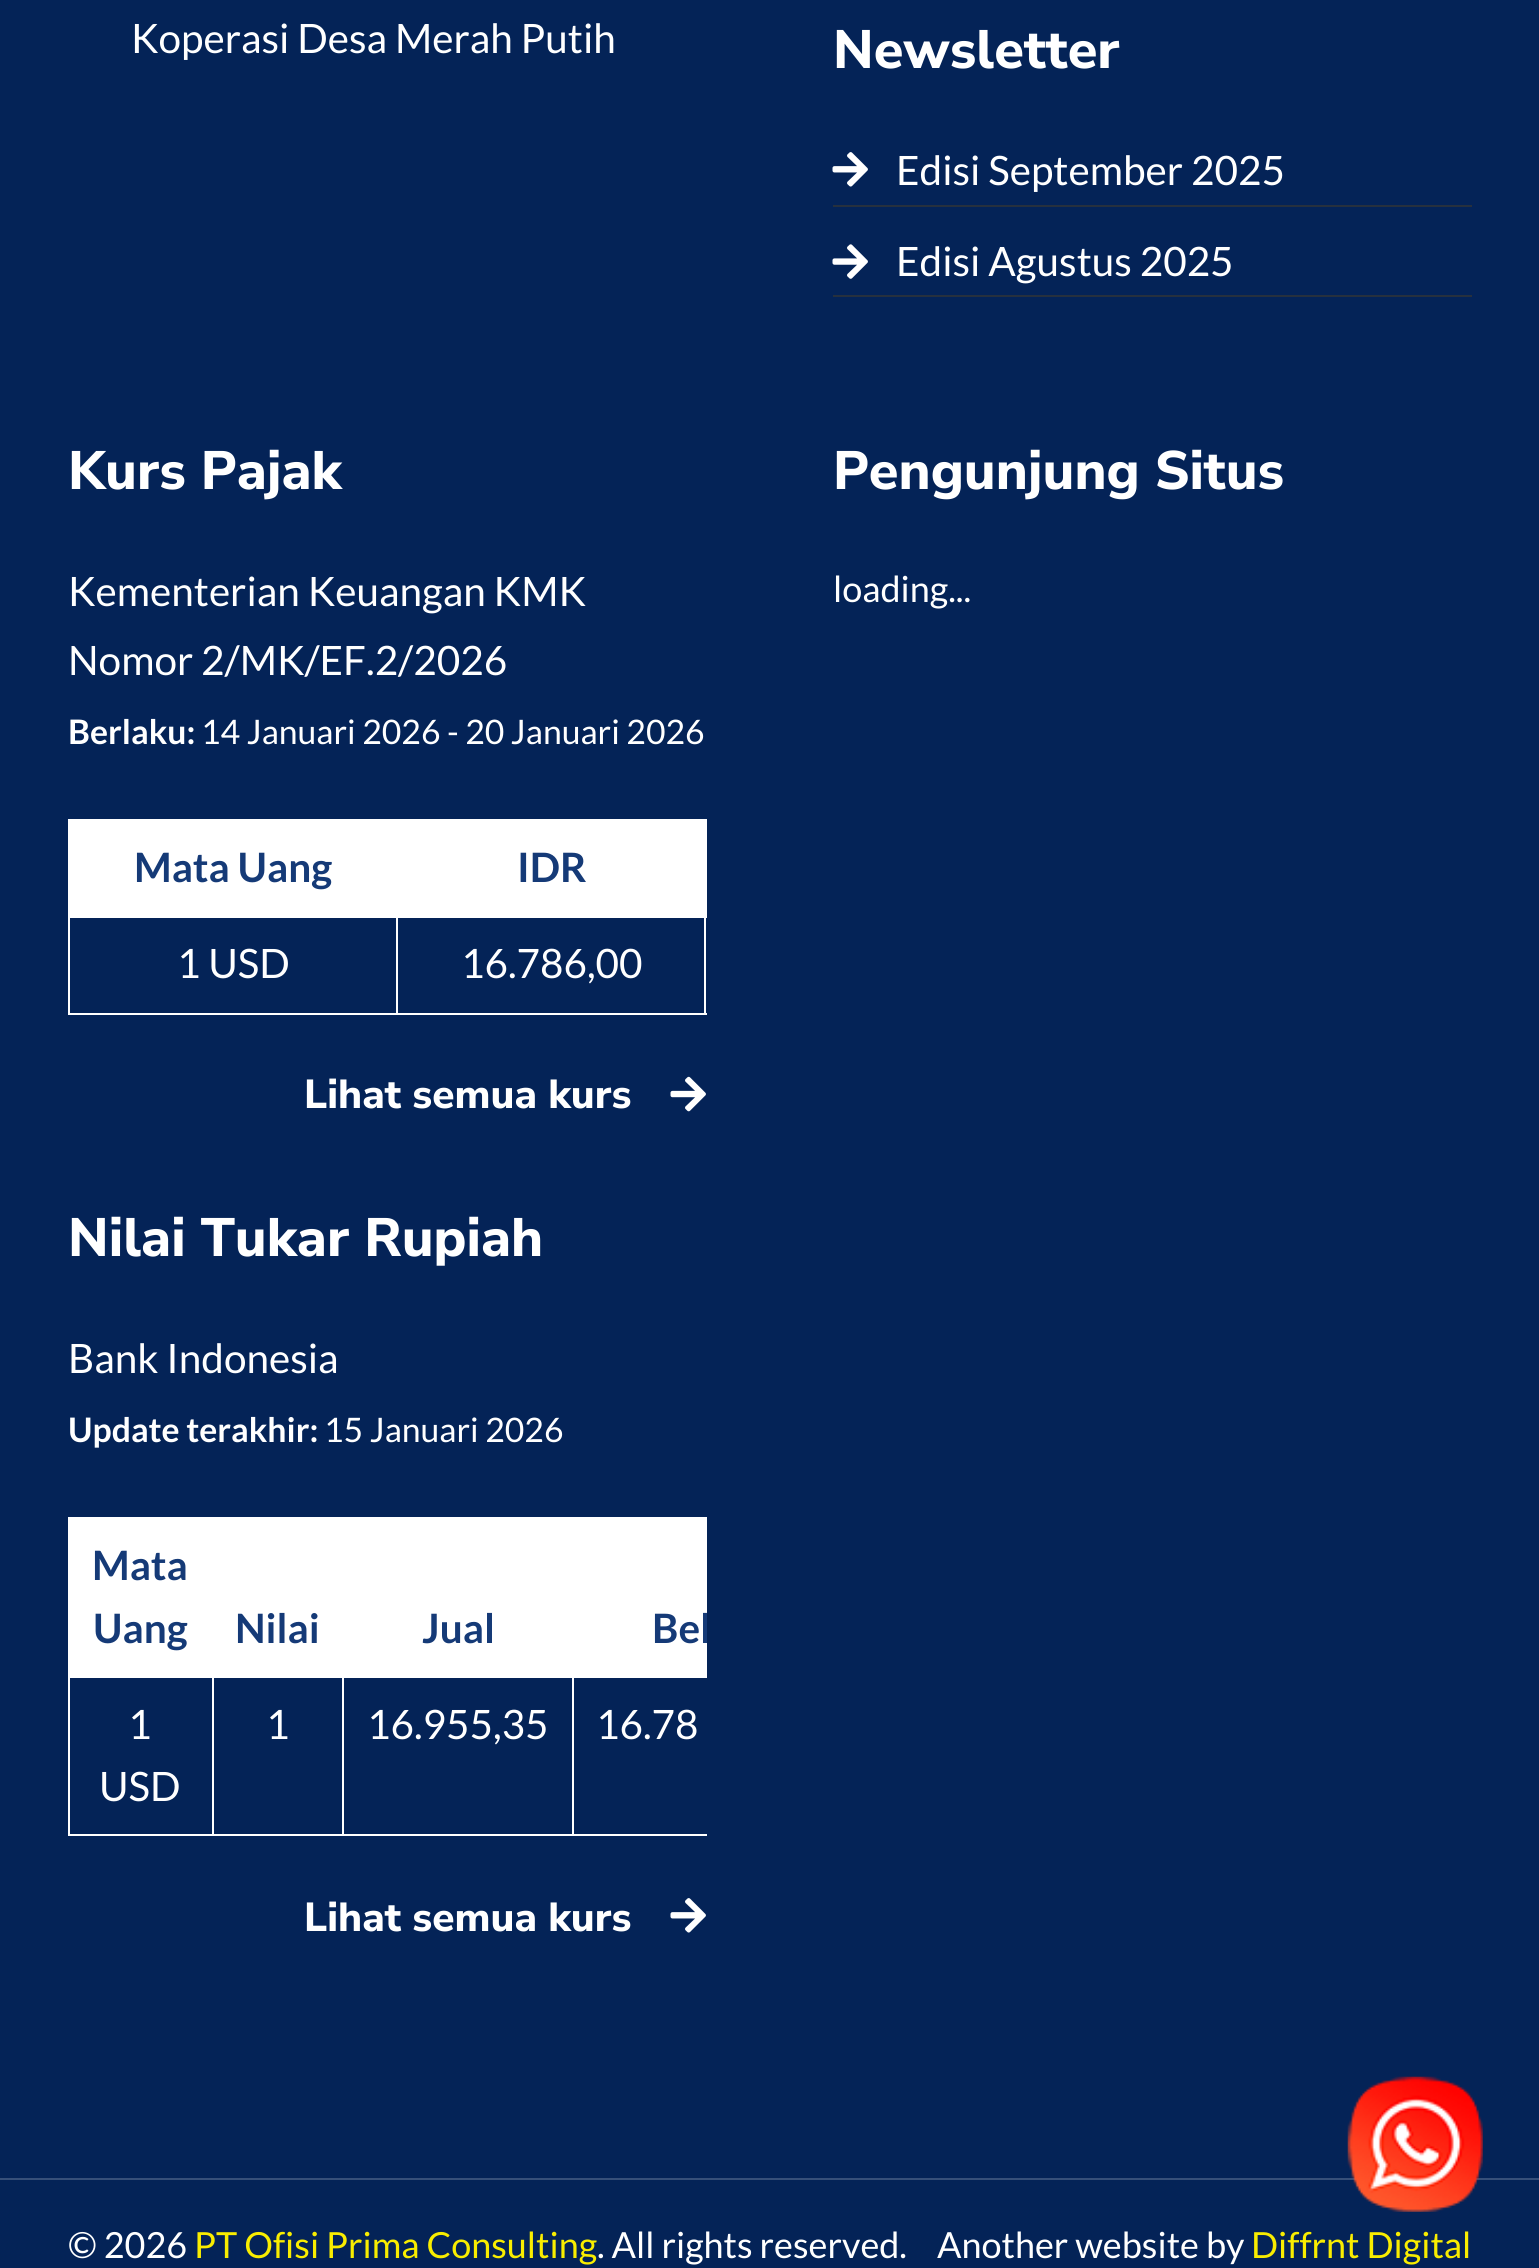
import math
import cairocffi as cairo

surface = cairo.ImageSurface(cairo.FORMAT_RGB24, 1539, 2268)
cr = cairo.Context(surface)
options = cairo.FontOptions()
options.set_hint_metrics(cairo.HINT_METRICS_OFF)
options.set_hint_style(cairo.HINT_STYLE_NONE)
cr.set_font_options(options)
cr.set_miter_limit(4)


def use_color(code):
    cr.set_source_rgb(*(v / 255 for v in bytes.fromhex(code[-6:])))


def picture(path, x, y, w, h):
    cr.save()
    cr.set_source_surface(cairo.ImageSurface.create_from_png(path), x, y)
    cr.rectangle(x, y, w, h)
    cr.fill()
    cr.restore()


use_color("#042357")
cr.paint()
cr.select_font_face("Lato")
cr.set_font_size(40.5)
use_color("#ffffff")
cr.move_to(131, 53)
cr.show_text("Koperasi Desa Merah Putih")
cr.select_font_face("Nunito Sans ExtraBold")
cr.set_font_size(54)
cr.move_to(833, 68)
cr.show_text("Newsletter")
use_color("#26303e")
cr.rectangle(833, 205, 639, 2)
cr.fill()
picture("img1.png", 832, 152, 36, 35)
cr.select_font_face("Lato")
cr.set_font_size(40.5)
use_color("#ffffff")
cr.move_to(896, 185)
cr.show_text("Edisi September 2025")
use_color("#26303e")
cr.rectangle(833, 295, 639, 2)
cr.fill()
picture("img2.png", 832, 244, 36, 35)
use_color("#ffffff")
cr.move_to(896, 276)
cr.show_text("Edisi Agustus 2025")
cr.select_font_face("Nunito Sans ExtraBold")
cr.set_font_size(54)
cr.move_to(68, 489)
cr.show_text("Kurs Pajak")
cr.select_font_face("Lato")
cr.set_font_size(40.5)
cr.move_to(68, 606)
cr.show_text("Kementerian Keuangan KMK")
cr.move_to(68, 675)
cr.show_text("Nomor 2/MK/EF.2/2026")
cr.select_font_face("Lato", cairo.FONT_SLANT_NORMAL, cairo.FONT_WEIGHT_BOLD)
cr.set_font_size(33.75)
cr.move_to(68, 744)
cr.show_text("Berlaku:")
cr.select_font_face("Lato")
cr.move_to(201, 744)
cr.show_text("14 Januari 2026 - 20 Januari 2026")
cr.rectangle(70, 821, 637, 95)
cr.fill()
cr.rectangle(68, 819, 639, 2)
cr.fill()
cr.rectangle(396, 916, 311, 2)
cr.fill()
cr.rectangle(704, 916, 2, 99)
cr.fill()
cr.rectangle(396, 1013, 311, 2)
cr.fill()
cr.rectangle(396, 916, 2, 99)
cr.fill()
cr.rectangle(68, 916, 330, 2)
cr.fill()
cr.rectangle(68, 1013, 330, 2)
cr.fill()
cr.rectangle(68, 916, 2, 99)
cr.fill()
cr.rectangle(68, 819, 2, 99)
cr.fill()
cr.select_font_face("Lato", cairo.FONT_SLANT_NORMAL, cairo.FONT_WEIGHT_BOLD)
cr.set_font_size(40.5)
use_color("#153a77")
cr.move_to(134, 882)
cr.show_text("Mata Uang")
cr.move_to(517, 882)
cr.show_text("IDR")
cr.select_font_face("Lato")
use_color("#ffffff")
cr.move_to(177, 978)
cr.show_text("1 USD")
cr.move_to(461, 978)
cr.show_text("16.786,00")
cr.select_font_face("Nunito Sans ExtraBold")
cr.move_to(304, 1108)
cr.show_text("Lihat semua kurs")
picture("img3.png", 670, 1076, 36, 36)
cr.set_font_size(54)
cr.move_to(68, 1256)
cr.show_text("Nilai Tukar Rupiah")
cr.select_font_face("Lato")
cr.set_font_size(40.5)
cr.move_to(68, 1373)
cr.show_text("Bank Indonesia")
cr.select_font_face("Lato", cairo.FONT_SLANT_NORMAL, cairo.FONT_WEIGHT_BOLD)
cr.set_font_size(33.75)
cr.move_to(68, 1442)
cr.show_text("Update terakhir:")
cr.select_font_face("Lato")
cr.move_to(324, 1442)
cr.show_text("15 Januari 2026")
cr.rectangle(70, 1519, 637, 157)
cr.fill()
cr.rectangle(68, 1517, 639, 2)
cr.fill()
cr.rectangle(572, 1676, 135, 2)
cr.fill()
cr.rectangle(572, 1834, 135, 2)
cr.fill()
cr.rectangle(572, 1676, 2, 160)
cr.fill()
cr.rectangle(342, 1676, 232, 2)
cr.fill()
cr.rectangle(342, 1834, 232, 2)
cr.fill()
cr.rectangle(342, 1676, 2, 160)
cr.fill()
cr.rectangle(212, 1676, 132, 2)
cr.fill()
cr.rectangle(212, 1834, 132, 2)
cr.fill()
cr.rectangle(212, 1676, 2, 160)
cr.fill()
cr.rectangle(68, 1676, 146, 2)
cr.fill()
cr.rectangle(68, 1834, 146, 2)
cr.fill()
cr.rectangle(68, 1676, 2, 160)
cr.fill()
cr.rectangle(68, 1517, 2, 162)
cr.fill()
cr.select_font_face("Lato", cairo.FONT_SLANT_NORMAL, cairo.FONT_WEIGHT_BOLD)
cr.set_font_size(40.5)
use_color("#153a77")
cr.move_to(92, 1580)
cr.show_text("Mata")
cr.move_to(93, 1643)
cr.show_text("Uang")
cr.move_to(235, 1643)
cr.show_text("Nilai")
cr.move_to(422, 1643)
cr.show_text("Jual")
cr.save()
cr.rectangle(68, 1517, 639, 364)
cr.clip()
cr.move_to(652, 1643)
cr.show_text("Bel")
cr.restore()
cr.select_font_face("Lato")
use_color("#ffffff")
cr.move_to(128, 1739)
cr.show_text("1")
cr.move_to(99, 1801)
cr.show_text("USD")
cr.move_to(266, 1739)
cr.show_text("1")
cr.move_to(367, 1739)
cr.show_text("16.955,35")
cr.move_to(596, 1739)
cr.show_text("16.78")
cr.select_font_face("Nunito Sans ExtraBold")
cr.move_to(304, 1931)
cr.show_text("Lihat semua kurs")
picture("img1.png", 670, 1898, 36, 35)
cr.set_font_size(54)
cr.move_to(833, 489)
cr.show_text("Pengunjung Situs")
cr.select_font_face("Lato")
cr.set_font_size(36)
cr.move_to(833, 602)
cr.show_text("loading...")
use_color("#364f79")
cr.rectangle(0, 2178, 1539, 2)
cr.fill()
use_color("#ffffff")
cr.move_to(68, 2258)
cr.show_text("© 2026")
use_color("#f9ed00")
cr.move_to(194, 2258)
cr.show_text("PT Ofisi Prima Consulting")
use_color("#ffffff")
cr.move_to(597, 2258)
cr.show_text(". All rights reserved.")
cr.move_to(937, 2258)
cr.show_text("Another website by")
use_color("#f9ed00")
cr.move_to(1251, 2258)
cr.show_text("Diffrnt Digital")
picture("img4.png", 1347, 2076, 136, 136)
surface.write_to_png("result.png")
